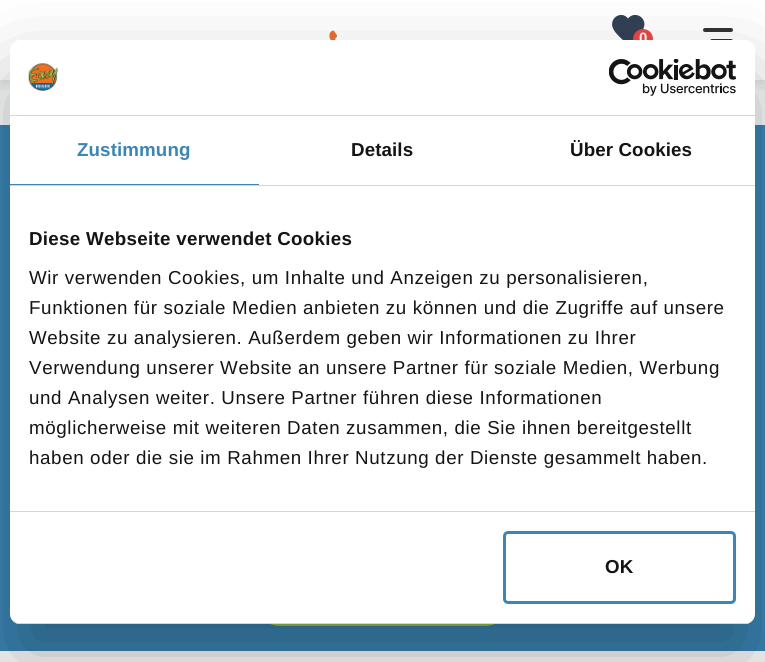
import math
import cairocffi as cairo

surface = cairo.ImageSurface(cairo.FORMAT_RGB24, 765, 662)
cr = cairo.Context(surface)
options = cairo.FontOptions()
options.set_hint_metrics(cairo.HINT_METRICS_OFF)
options.set_hint_style(cairo.HINT_STYLE_NONE)
cr.set_font_options(options)
cr.set_miter_limit(4)


def use_color(code):
    cr.set_source_rgb(*(v / 255 for v in bytes.fromhex(code[-6:])))


def spaced_text(x, y, s, letter, word):
    cr.move_to(x, y)
    for ch in s:
        cr.show_text(ch)
        cr.rel_move_to(letter + word * (ch == ' '), 0)


def round_rect(x, y, w, h, r):
    cr.new_sub_path()
    for i, (u, v) in enumerate([(x + w - r, y + h - r), (x + r, y + h - r), (x + r, y + r), (x + w - r, y + r)]):
        cr.arc(u, v, r, i * math.pi / 2, (i + 1) * math.pi / 2)
    cr.close_path()


def shadow(x, y, w, h, r, blur, alpha):
    cr.push_group_with_content(cairo.CONTENT_ALPHA)
    cr.set_operator(cairo.OPERATOR_SOURCE)
    for i in range(15, -16, -2):
        e = blur * i / 6
        if min(w, h) + 2 * e > 0:
            cr.set_source_rgba(0, 0, 0, alpha * math.erfc((i - 1) / 8.5) / 2)
            round_rect(x - e, y - e, w + 2 * e, h + 2 * e, max(0, min(r + e + blur * .6, min(w, h) / 2 + e)))
            cr.fill()
    cr.mask(cr.pop_group())


def picture(path, x, y, w, h):
    cr.save()
    cr.set_source_surface(cairo.ImageSurface.create_from_png(path), x, y)
    cr.rectangle(x, y, w, h)
    cr.fill()
    cr.restore()


use_color("#ffffff")
cr.paint()
use_color("#f9fafb")
cr.rectangle(0, 80, 765, 45)
cr.fill()
cr.save()
cr.rectangle(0, 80, 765, 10)
cr.clip()
use_color("#000000")
shadow(0, 0, 765, 80, 0, 9.5, 0.15)
cr.restore()
picture("img1.png", 329, 30, 9, 10)
use_color("#334155")
cr.new_path()
cr.move_to(628, 44.5)
cr.curve_to(623, 40, 616, 34.5, 613, 28.5)
cr.curve_to(608.5, 18, 621.5, 10, 628, 18.5)
cr.curve_to(635, 10, 648, 18, 643.5, 28.5)
cr.curve_to(640.5, 34.5, 633.5, 40, 628, 44.5)
cr.close_path()
cr.fill()
use_color("#ef4444")
cr.arc(643, 39, 10, 0, 2 * math.pi)
cr.fill()
cr.select_font_face("Liberation Sans", cairo.FONT_SLANT_NORMAL, cairo.FONT_WEIGHT_BOLD)
cr.set_font_size(15)
use_color("#ffffff")
cr.move_to(639, 43)
cr.show_text("0")
use_color("#333333")
round_rect(703, 28, 30, 4, 2)
cr.fill()
round_rect(710, 39, 23, 4, 2)
cr.fill()
use_color("#3b86b5")
cr.rectangle(0, 125, 765, 526)
cr.fill()
use_color("#a2c94a")
round_rect(255, 576, 255, 50, 25)
cr.fill()
use_color("#000000")
shadow(10, 80, 745, 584, 10, 42.5, 0.3)
use_color("#ffffff")
round_rect(10, 40, 745, 584, 10)
cr.fill()
use_color("#d6d6d6")
cr.rectangle(10, 115, 745, 1)
cr.fill()
picture("img2.png", 28, 63, 30, 28)
picture("img3.png", 609, 59, 127, 37)
cr.rectangle(10, 185, 745, 1)
cr.fill()
use_color("#3b86b5")
cr.rectangle(10, 184, 249, 1)
cr.fill()
cr.set_font_size(18.75)
spaced_text(77, 156, "Zustimmung", 0.1, 0)
use_color("#141414")
spaced_text(351, 156, "Details", 0.1, 0)
spaced_text(570, 156, "Über Cookies", 0.1, 0)
use_color("#d6d6d6")
cr.rectangle(10, 511, 745, 1)
cr.fill()
use_color("#141414")
spaced_text(29, 245, "Diese Webseite verwendet Cookies", 0.3, 0)
cr.select_font_face("Liberation Sans")
spaced_text(29, 284, "Wir verwenden Cookies, um Inhalte und Anzeigen zu personalisieren,", 0.62, 0)
spaced_text(29, 314, "Funktionen für soziale Medien anbieten zu können und die Zugriffe auf unsere", 0.62, 0)
spaced_text(29, 344, "Website zu analysieren. Außerdem geben wir Informationen zu Ihrer", 0.62, 0)
spaced_text(29, 374, "Verwendung unserer Website an unsere Partner für soziale Medien, Werbung", 0.62, 0)
spaced_text(29, 404, "und Analysen weiter. Unsere Partner führen diese Informationen", 0.62, 0)
spaced_text(29, 434, "möglicherweise mit weiteren Daten zusammen, die Sie ihnen bereitgestellt", 0.62, 0)
spaced_text(29, 464, "haben oder die sie im Rahmen Ihrer Nutzung der Dienste gesammelt haben.", 0.62, 0)
cr.save()
round_rect(10, 40, 745, 584, 10)
cr.clip()
use_color("#d6d6d6")
cr.rectangle(10, 623, 745, 1)
cr.fill()
cr.restore()
round_rect(504.5, 532.5, 230, 70, 3.5)
use_color("#3b86b5")
cr.set_line_width(3)
cr.stroke()
cr.select_font_face("Liberation Sans", cairo.FONT_SLANT_NORMAL, cairo.FONT_WEIGHT_BOLD)
use_color("#141414")
spaced_text(605, 573, "OK", 0.1, 0)
surface.write_to_png("result.png")
